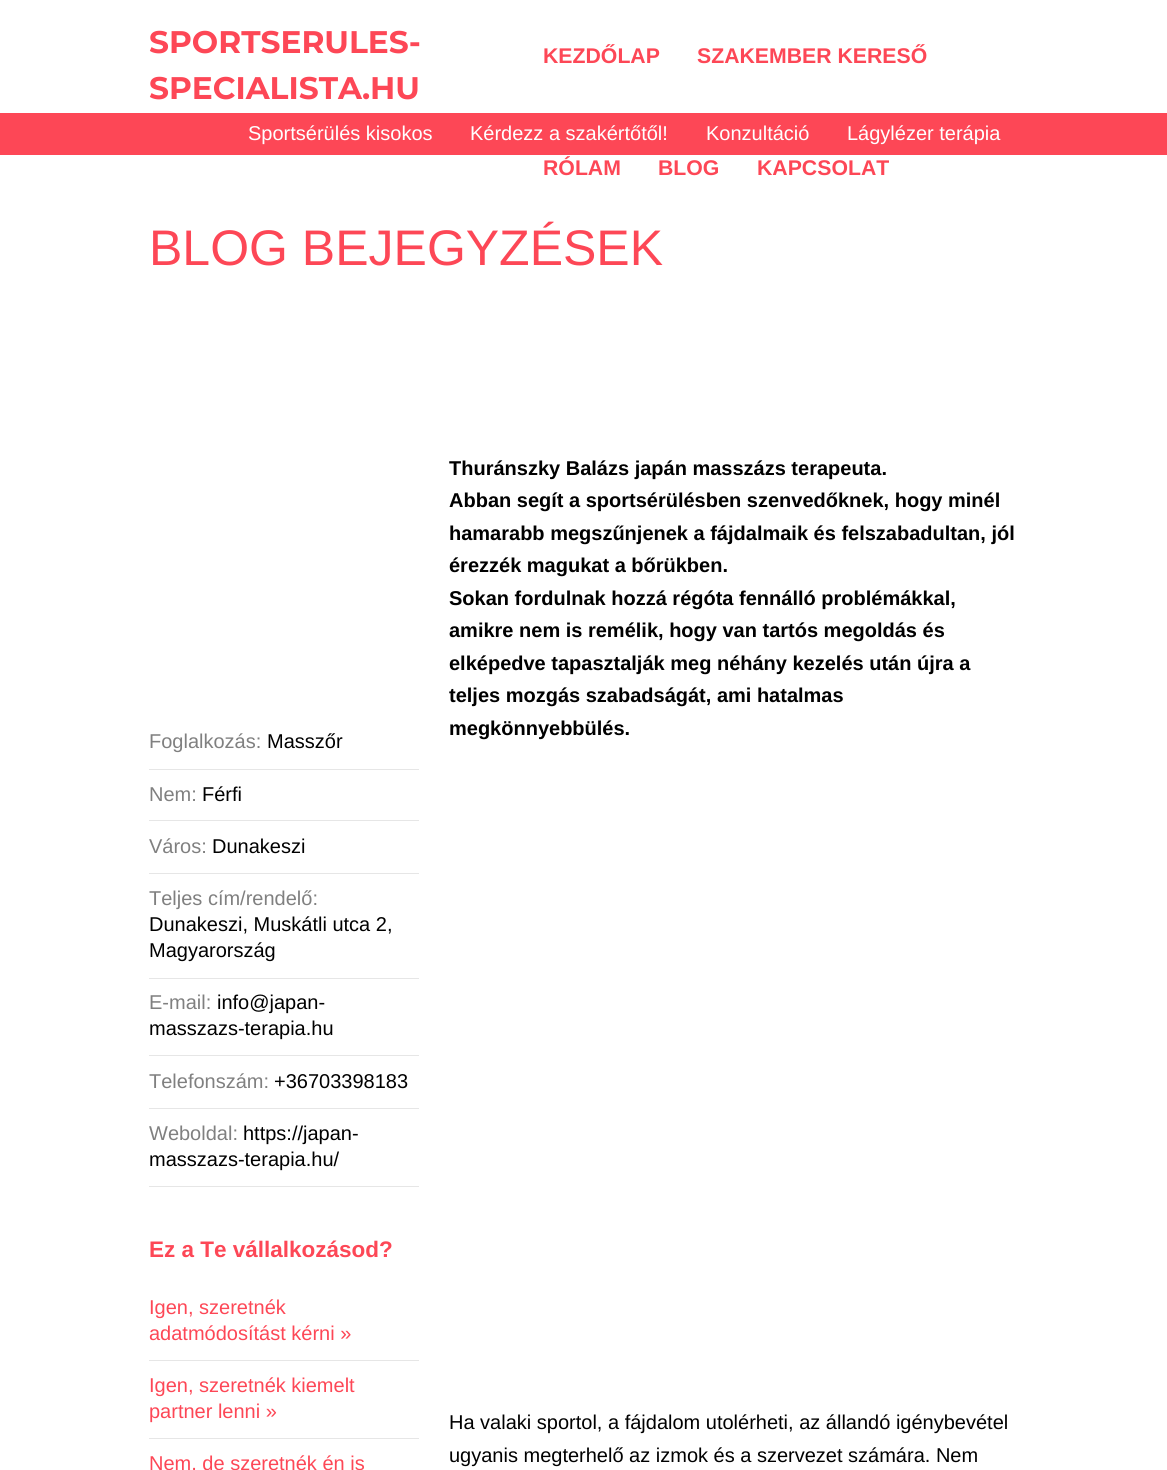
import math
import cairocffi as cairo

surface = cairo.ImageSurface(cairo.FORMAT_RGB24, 1167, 1470)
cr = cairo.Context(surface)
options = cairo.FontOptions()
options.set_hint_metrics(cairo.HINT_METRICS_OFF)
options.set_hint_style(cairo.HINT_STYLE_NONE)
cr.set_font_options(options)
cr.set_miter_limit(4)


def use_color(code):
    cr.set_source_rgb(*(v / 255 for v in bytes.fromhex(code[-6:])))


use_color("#ffffff")
cr.paint()
cr.select_font_face("Montserrat", cairo.FONT_SLANT_NORMAL, cairo.FONT_WEIGHT_BOLD)
cr.set_font_size(31.25)
use_color("#fd4756")
cr.move_to(149, 53)
cr.show_text("SPORTSERULES-")
cr.move_to(149, 99)
cr.show_text("SPECIALISTA.HU")
cr.select_font_face("Liberation Sans", cairo.FONT_SLANT_NORMAL, cairo.FONT_WEIGHT_BOLD)
cr.set_font_size(21.25)
cr.move_to(543, 63)
cr.show_text("KEZDŐLAP")
cr.move_to(697, 63)
cr.show_text("SZAKEMBER KERESŐ")
cr.move_to(543, 175)
cr.show_text("RÓLAM")
cr.move_to(658, 175)
cr.show_text("BLOG")
cr.move_to(757, 175)
cr.show_text("KAPCSOLAT")
cr.rectangle(0, 113, 1167, 42)
cr.fill()
cr.select_font_face("Liberation Sans")
cr.set_font_size(20)
use_color("#ffffff")
cr.move_to(248, 140)
cr.show_text("Sportsérülés kisokos")
cr.move_to(470, 140)
cr.show_text("Kérdezz a szakértőtől!")
cr.move_to(706, 140)
cr.show_text("Konzultáció")
cr.move_to(847, 140)
cr.show_text("Lágylézer terápia")
cr.set_font_size(50)
use_color("#fd4756")
cr.move_to(149, 265)
cr.show_text("BLOG BEJEGYZÉSEK")
use_color("#e6e6e6")
cr.rectangle(149, 769, 270, 1)
cr.fill()
cr.set_font_size(20)
use_color("#808080")
cr.move_to(149, 748)
cr.show_text("Foglalkozás:")
use_color("#000000")
cr.move_to(267, 748)
cr.show_text("Masszőr")
use_color("#e6e6e6")
cr.rectangle(149, 820, 270, 1)
cr.fill()
use_color("#808080")
cr.move_to(149, 801)
cr.show_text("Nem:")
use_color("#000000")
cr.move_to(202, 801)
cr.show_text("Férfi")
use_color("#e6e6e6")
cr.rectangle(149, 873, 270, 1)
cr.fill()
use_color("#808080")
cr.move_to(149, 853)
cr.show_text("Város:")
use_color("#000000")
cr.move_to(212, 853)
cr.show_text("Dunakeszi")
use_color("#e6e6e6")
cr.rectangle(149, 978, 270, 1)
cr.fill()
use_color("#808080")
cr.move_to(149, 905)
cr.show_text("Teljes cím/rendelő:")
use_color("#000000")
cr.move_to(149, 931)
cr.show_text("Dunakeszi, Muskátli utca 2,")
cr.move_to(149, 957)
cr.show_text("Magyarország")
use_color("#e6e6e6")
cr.rectangle(149, 1055, 270, 1)
cr.fill()
use_color("#808080")
cr.move_to(149, 1009)
cr.show_text("E-mail:")
use_color("#000000")
cr.move_to(217, 1009)
cr.show_text("info@japan-")
cr.move_to(149, 1035)
cr.show_text("masszazs-terapia.hu")
use_color("#e6e6e6")
cr.rectangle(149, 1108, 270, 1)
cr.fill()
use_color("#808080")
cr.move_to(149, 1088)
cr.show_text("Telefonszám:")
use_color("#000000")
cr.move_to(274, 1088)
cr.show_text("+36703398183")
use_color("#e6e6e6")
cr.rectangle(149, 1186, 270, 1)
cr.fill()
use_color("#808080")
cr.move_to(149, 1140)
cr.show_text("Weboldal:")
use_color("#000000")
cr.move_to(243, 1140)
cr.show_text("https://japan-")
cr.move_to(149, 1166)
cr.show_text("masszazs-terapia.hu/")
cr.select_font_face("Liberation Sans", cairo.FONT_SLANT_NORMAL, cairo.FONT_WEIGHT_BOLD)
cr.set_font_size(22.5)
use_color("#fd4756")
cr.move_to(149, 1257)
cr.show_text("Ez a Te vállalkozásod?")
use_color("#e6e6e6")
cr.rectangle(149, 1360, 270, 1)
cr.fill()
cr.select_font_face("Liberation Sans")
cr.set_font_size(20)
use_color("#fd4756")
cr.move_to(149, 1314)
cr.show_text("Igen, szeretnék")
cr.move_to(149, 1340)
cr.show_text("adatmódosítást kérni »")
use_color("#e6e6e6")
cr.rectangle(149, 1438, 270, 1)
cr.fill()
use_color("#fd4756")
cr.move_to(149, 1392)
cr.show_text("Igen, szeretnék kiemelt")
cr.move_to(149, 1418)
cr.show_text("partner lenni »")
cr.move_to(149, 1470)
cr.show_text("Nem, de szeretnék én is")
cr.select_font_face("Liberation Sans", cairo.FONT_SLANT_NORMAL, cairo.FONT_WEIGHT_BOLD)
use_color("#000000")
cr.move_to(449, 475)
cr.show_text("Thuránszky Balázs japán masszázs terapeuta.")
cr.move_to(449, 507)
cr.show_text("Abban segít a sportsérülésben szenvedőknek, hogy minél")
cr.move_to(449, 540)
cr.show_text("hamarabb megszűnjenek a fájdalmaik és felszabadultan, jól")
cr.move_to(449, 572)
cr.show_text("érezzék magukat a bőrükben.")
cr.move_to(449, 605)
cr.show_text("Sokan fordulnak hozzá régóta fennálló problémákkal,")
cr.move_to(449, 637)
cr.show_text("amikre nem is remélik, hogy van tartós megoldás és")
cr.move_to(449, 670)
cr.show_text("elképedve tapasztalják meg néhány kezelés után újra a")
cr.move_to(449, 702)
cr.show_text("teljes mozgás szabadságát, ami hatalmas")
cr.move_to(449, 735)
cr.show_text("megkönnyebbülés.")
cr.select_font_face("Liberation Sans")
cr.move_to(449, 1429)
cr.show_text("Ha valaki sportol, a fájdalom utolérheti, az állandó igénybevétel")
cr.move_to(449, 1462)
cr.show_text("ugyanis megterhelő az izmok és a szervezet számára. Nem")
surface.write_to_png("result.png")
